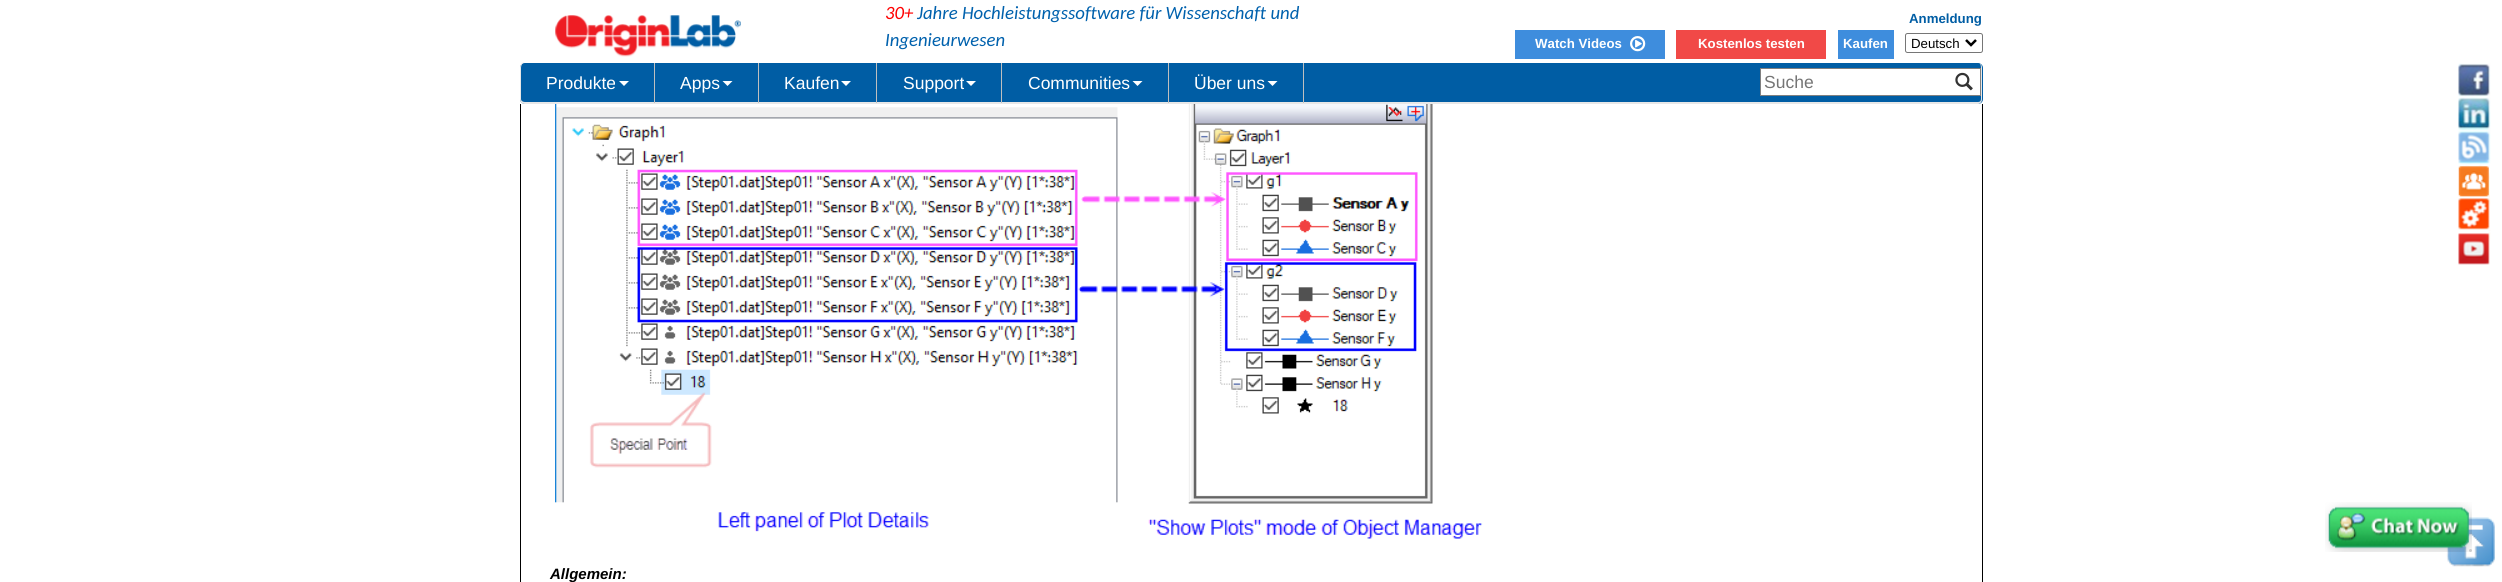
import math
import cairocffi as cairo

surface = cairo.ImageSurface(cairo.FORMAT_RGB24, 2502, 582)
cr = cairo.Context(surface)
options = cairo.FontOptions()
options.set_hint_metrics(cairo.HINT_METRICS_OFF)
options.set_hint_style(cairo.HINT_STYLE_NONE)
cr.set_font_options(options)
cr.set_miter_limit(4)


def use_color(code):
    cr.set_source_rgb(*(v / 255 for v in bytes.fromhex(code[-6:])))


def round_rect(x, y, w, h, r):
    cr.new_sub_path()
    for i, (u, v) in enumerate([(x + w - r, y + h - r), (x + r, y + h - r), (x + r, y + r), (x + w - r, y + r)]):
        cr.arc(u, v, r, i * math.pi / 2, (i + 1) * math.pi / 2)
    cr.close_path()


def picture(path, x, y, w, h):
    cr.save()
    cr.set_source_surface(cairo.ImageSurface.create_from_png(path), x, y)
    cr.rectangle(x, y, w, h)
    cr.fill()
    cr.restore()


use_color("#ffffff")
cr.paint()
cr.rectangle(520.5, -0.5, 1462, 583)
use_color("#000000")
cr.set_line_width(1)
cr.stroke()
use_color("#ffffff")
cr.rectangle(520, 0, 1463, 104)
cr.fill()
picture("img1.png", 555, 15, 186, 42)
cr.select_font_face("Carlito", cairo.FONT_SLANT_ITALIC)
cr.set_font_size(18.75)
use_color("#ff0000")
cr.move_to(885, 19)
cr.show_text("30+")
use_color("#0061ad")
cr.move_to(917, 19)
cr.show_text("Jahre Hochleistungssoftware für Wissenschaft und")
cr.move_to(885, 46)
cr.show_text("Ingenieurwesen")
cr.select_font_face("Liberation Sans", cairo.FONT_SLANT_NORMAL, cairo.FONT_WEIGHT_BOLD)
cr.set_font_size(13.25)
use_color("#005da4")
cr.move_to(1909, 23)
cr.show_text("Anmeldung")
use_color("#3e8ddd")
cr.rectangle(1515, 30, 150, 29)
cr.fill()
use_color("#ffffff")
cr.move_to(1535, 48)
cr.show_text("Watch Videos")
picture("img2.png", 1630, 36, 16, 16)
use_color("#f14947")
cr.rectangle(1676, 30, 150, 29)
cr.fill()
use_color("#ffffff")
cr.move_to(1698, 48)
cr.show_text("Kostenlos testen")
use_color("#3e8ddd")
cr.rectangle(1838, 30, 56, 29)
cr.fill()
use_color("#ffffff")
cr.move_to(1843, 48)
cr.show_text("Kaufen")
round_rect(1905.5, 33.5, 77, 19, 2)
use_color("#767676")
cr.stroke()
cr.new_path()
cr.move_to(1966, 40)
cr.line_to(1971, 45)
cr.line_to(1976, 40)
use_color("#000000")
cr.set_line_width(2.5)
cr.stroke()
cr.select_font_face("Liberation Sans")
cr.move_to(1911, 48)
cr.show_text("Deutsch")
use_color("#005da4")
round_rect(520, 63, 1463, 41, 5)
cr.fill()
use_color("#e7e7e7")
cr.set_fill_rule(cairo.FILL_RULE_EVEN_ODD)
cr.new_path()
cr.move_to(525, 62)
cr.line_to(1978, 62)
cr.curve_to(1980, 62, 1982, 65, 1982, 68)
cr.line_to(1982, 99)
cr.curve_to(1982, 102, 1980, 104, 1978, 104)
cr.line_to(525, 104)
cr.curve_to(522, 104, 520, 102, 520, 99)
cr.line_to(520, 68)
cr.curve_to(520, 65, 522, 62, 525, 62)
cr.close_path()
cr.move_to(525, 62)
cr.line_to(1978, 62)
cr.curve_to(1980, 62, 1981, 65, 1981, 68)
cr.line_to(1981, 99)
cr.curve_to(1981, 101, 1980, 102, 1978, 102)
cr.line_to(525, 102)
cr.curve_to(523, 102, 521, 101, 521, 99)
cr.line_to(521, 68)
cr.curve_to(521, 65, 523, 62, 525, 62)
cr.close_path()
cr.fill()
use_color("#bfbfbf")
cr.rectangle(654, 63, 1, 40)
cr.fill()
cr.set_font_size(17.5)
use_color("#ffffff")
cr.move_to(546, 89)
cr.show_text("Produkte")
cr.set_fill_rule(cairo.FILL_RULE_WINDING)
cr.new_path()
cr.move_to(619, 81)
cr.line_to(629, 81)
cr.line_to(624, 86)
cr.close_path()
cr.fill()
use_color("#bfbfbf")
cr.rectangle(758, 63, 1, 40)
cr.fill()
use_color("#ffffff")
cr.move_to(680, 89)
cr.show_text("Apps")
cr.new_path()
cr.move_to(722.5, 81)
cr.line_to(732.5, 81)
cr.line_to(727.5, 86)
cr.close_path()
cr.fill()
use_color("#bfbfbf")
cr.rectangle(876, 63, 1, 40)
cr.fill()
use_color("#ffffff")
cr.move_to(784, 89)
cr.show_text("Kaufen")
cr.new_path()
cr.move_to(841, 81)
cr.line_to(851, 81)
cr.line_to(846, 86)
cr.close_path()
cr.fill()
use_color("#bfbfbf")
cr.rectangle(1001, 63, 1, 40)
cr.fill()
use_color("#ffffff")
cr.move_to(903, 89)
cr.show_text("Support")
cr.new_path()
cr.move_to(966, 81)
cr.line_to(976, 81)
cr.line_to(971, 86)
cr.close_path()
cr.fill()
use_color("#bfbfbf")
cr.rectangle(1168, 63, 1, 40)
cr.fill()
use_color("#ffffff")
cr.move_to(1028, 89)
cr.show_text("Communities")
cr.new_path()
cr.move_to(1132.5, 81)
cr.line_to(1142.5, 81)
cr.line_to(1137.5, 86)
cr.close_path()
cr.fill()
use_color("#bfbfbf")
cr.rectangle(1303, 63, 1, 40)
cr.fill()
use_color("#ffffff")
cr.move_to(1194, 89)
cr.show_text("Über uns")
cr.new_path()
cr.move_to(1267.5, 81)
cr.line_to(1277.5, 81)
cr.line_to(1272.5, 86)
cr.close_path()
cr.fill()
cr.rectangle(1761, 69, 219, 26)
cr.fill()
use_color("#808080")
cr.rectangle(1760, 68, 221, 1)
cr.fill()
cr.rectangle(1760, 95, 188, 1)
cr.fill()
cr.rectangle(1760, 68, 1, 28)
cr.fill()
use_color("#757575")
cr.move_to(1764, 88)
cr.show_text("Suche")
use_color("#808080")
cr.rectangle(1980, 68, 1, 28)
cr.fill()
cr.rectangle(1948, 95, 33, 1)
cr.fill()
picture("img3.png", 1955, 72, 18, 19)
picture("img4.png", 2458, 63, 33, 34)
picture("img5.png", 2458, 97, 33, 34)
picture("img6.png", 2458, 130, 33, 35)
picture("img7.png", 2458, 165, 32, 33)
picture("img8.png", 2458, 198, 33, 33)
picture("img9.png", 2458, 232, 33, 33)
picture("img10.png", 2446, 517, 49, 50)
picture("img11.png", 2325, 502, 147, 50)
use_color("#cccccc")
cr.arc(2470.5, 550.5, 1.5, 0, 2 * math.pi)
cr.fill()
picture("img12.png", 555, 104, 928, 435)
cr.select_font_face("Liberation Sans", cairo.FONT_SLANT_ITALIC, cairo.FONT_WEIGHT_BOLD)
cr.set_font_size(15)
use_color("#000000")
cr.move_to(550, 579)
cr.show_text("Allgemein:")
surface.write_to_png("result.png")
